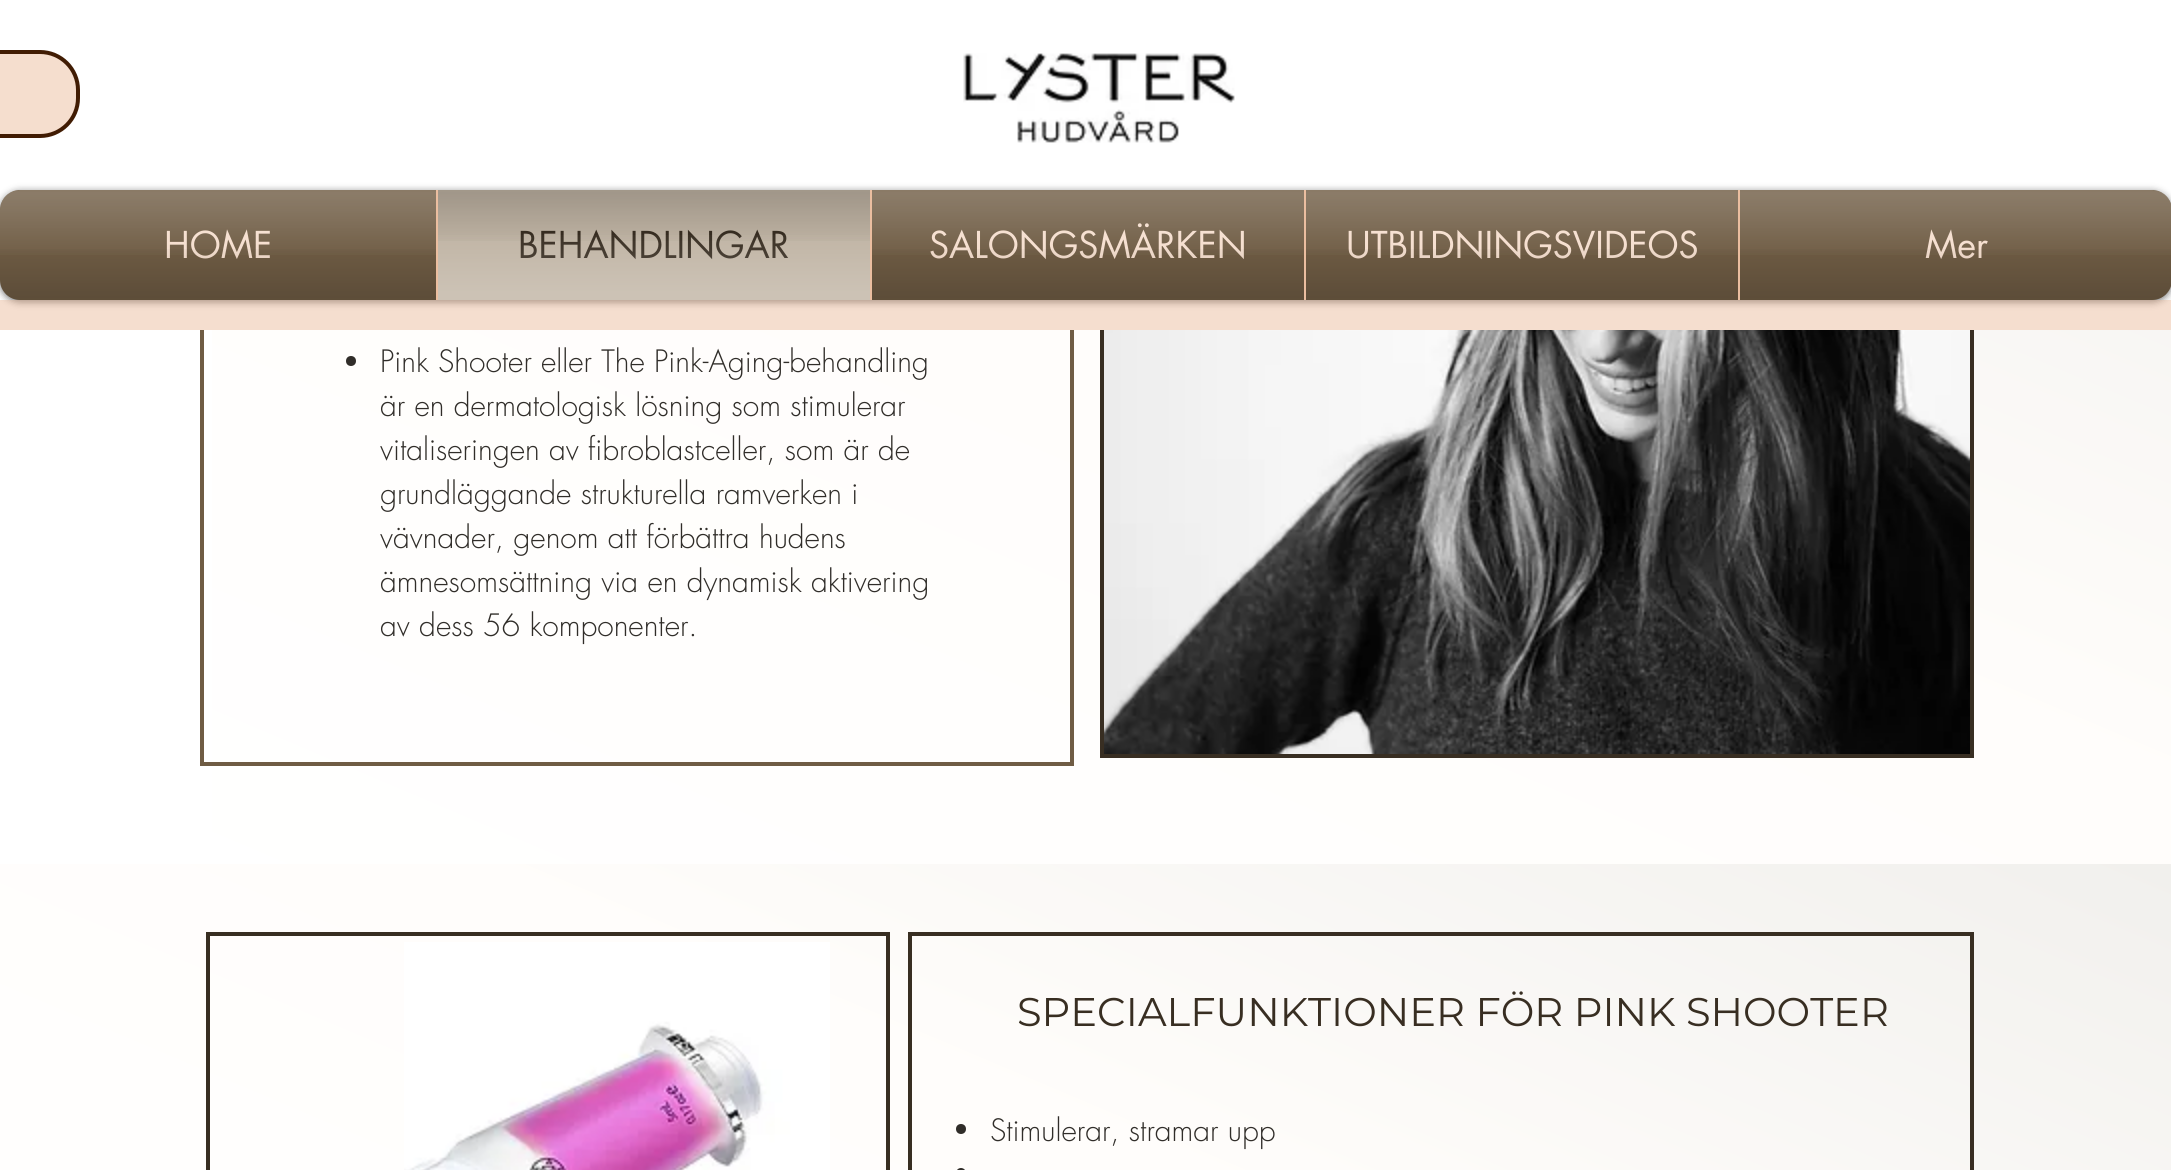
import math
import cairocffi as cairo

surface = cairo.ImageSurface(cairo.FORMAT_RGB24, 2171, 1170)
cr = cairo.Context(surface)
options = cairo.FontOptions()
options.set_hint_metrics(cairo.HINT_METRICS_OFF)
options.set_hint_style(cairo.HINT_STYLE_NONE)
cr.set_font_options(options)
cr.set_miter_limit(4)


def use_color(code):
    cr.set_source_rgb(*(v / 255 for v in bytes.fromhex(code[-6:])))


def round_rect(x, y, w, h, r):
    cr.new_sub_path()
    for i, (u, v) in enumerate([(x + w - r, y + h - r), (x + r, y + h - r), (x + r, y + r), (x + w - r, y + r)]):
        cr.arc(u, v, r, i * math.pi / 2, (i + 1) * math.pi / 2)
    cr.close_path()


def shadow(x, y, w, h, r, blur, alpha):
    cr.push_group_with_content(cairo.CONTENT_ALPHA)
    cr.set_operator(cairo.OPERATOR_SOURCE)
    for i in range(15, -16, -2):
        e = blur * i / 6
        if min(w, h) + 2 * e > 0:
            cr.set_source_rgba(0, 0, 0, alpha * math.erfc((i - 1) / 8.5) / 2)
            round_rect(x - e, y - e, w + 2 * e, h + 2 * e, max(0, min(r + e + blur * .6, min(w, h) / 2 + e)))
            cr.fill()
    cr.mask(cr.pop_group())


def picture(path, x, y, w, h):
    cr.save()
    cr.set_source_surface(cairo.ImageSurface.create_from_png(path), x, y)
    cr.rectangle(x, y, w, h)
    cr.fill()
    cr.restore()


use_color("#ffffff")
cr.paint()
gradient = cairo.LinearGradient(748, 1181, 1424, -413)
gradient.add_color_stop_rgba(0, 1, 1, 1, 1)
gradient.add_color_stop_rgba(0.53, 1, 0.992, 0.984, 1)
gradient.add_color_stop_rgba(1, 0.945, 0.941, 0.929, 1)
cr.set_source(gradient)
cr.rectangle(212, 330, 1959, 534)
cr.fill()
cr.rectangle(202, 42, 870, 722)
use_color("#6f5c44")
cr.set_line_width(4)
cr.stroke()
use_color("#ffffff")
cr.rectangle(200, 40, 874, 290)
cr.fill()
use_color("#f5dece")
round_rect(-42, 52, 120, 84, 38)
cr.fill_preserve()
use_color("#411c03")
cr.stroke()
picture("img1.png", 963, 53, 272, 90)
use_color("#000000")
shadow(0, 192, 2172, 110, 20, 4, 0.6)
picture("img2.png", 0, 190, 2171, 20)
use_color("#6f5c44")
cr.new_path()
cr.move_to(20, 190)
cr.line_to(436, 190)
cr.line_to(436, 300)
cr.line_to(20, 300)
cr.curve_to(9, 300, 0, 291, 0, 280)
cr.line_to(0, 210)
cr.curve_to(0, 199, 9, 190, 20, 190)
cr.close_path()
cr.fill()
cr.select_font_face("futura")
cr.set_font_size(36)
use_color("#f5dece")
cr.move_to(164, 258)
cr.show_text("HOME")
picture("img3.png", 0, 190, 436, 65)
picture("img4.png", 0, 249, 436, 51)
use_color("#c0b4a4")
cr.rectangle(438, 190, 432, 110)
cr.fill()
use_color("#ebbea0")
cr.rectangle(436, 190, 2, 110)
cr.fill()
use_color("#382e22")
cr.move_to(518, 258)
cr.show_text("BEHANDLINGAR")
picture("img5.png", 438, 190, 432, 51)
picture("img6.png", 438, 235, 432, 65)
use_color("#6f5c44")
cr.rectangle(872, 190, 432, 110)
cr.fill()
use_color("#ebbea0")
cr.rectangle(870, 190, 2, 110)
cr.fill()
use_color("#f5dece")
cr.move_to(929, 258)
cr.show_text("SALONGSMÄRKEN")
picture("img7.png", 872, 190, 432, 65)
picture("img8.png", 872, 249, 432, 51)
use_color("#6f5c44")
cr.rectangle(1306, 190, 432, 110)
cr.fill()
use_color("#ebbea0")
cr.rectangle(1304, 190, 2, 110)
cr.fill()
use_color("#f5dece")
cr.move_to(1346, 258)
cr.show_text("UTBILDNINGSVIDEOS")
picture("img9.png", 1306, 190, 432, 65)
picture("img10.png", 1306, 249, 432, 51)
use_color("#6f5c44")
cr.new_path()
cr.move_to(1738, 190)
cr.line_to(2152, 190)
cr.curve_to(2163, 190, 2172, 199, 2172, 210)
cr.line_to(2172, 280)
cr.curve_to(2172, 291, 2163, 300, 2152, 300)
cr.line_to(1738, 300)
cr.close_path()
cr.fill()
use_color("#ebbea0")
cr.rectangle(1738, 190, 2, 110)
cr.fill()
use_color("#f5dece")
cr.move_to(1925, 258)
cr.show_text("Mer")
picture("img11.png", 1740, 190, 431, 65)
picture("img12.png", 1740, 249, 431, 51)
cr.set_source_rgba(0.922, 0.745, 0.627, 0.5)
cr.rectangle(0, 300, 2171, 30)
cr.fill()
use_color("#302d29")
cr.arc(351, 361, 5, 0, 2 * math.pi)
cr.fill()
cr.select_font_face("futura Light")
cr.set_font_size(30)
cr.move_to(380, 372)
cr.show_text("Pink Shooter eller The Pink-Aging-behandling")
cr.move_to(380, 416)
cr.show_text("är en dermatologisk lösning som stimulerar")
cr.move_to(380, 460)
cr.show_text("vitaliseringen av fibroblastceller, som är de")
cr.move_to(380, 504)
cr.show_text("grundläggande strukturella ramverken i")
cr.move_to(380, 548)
cr.show_text("vävnader, genom att förbättra hudens")
cr.move_to(380, 592)
cr.show_text("ämnesomsättning via en dynamisk aktivering")
cr.move_to(380, 636)
cr.show_text("av dess 56 komponenter.")
use_color("#382e22")
cr.rectangle(1100, 330, 874, 428)
cr.fill()
picture("img13.png", 1104, 330, 866, 424)
gradient = cairo.LinearGradient(809, 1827, 1363, 521)
gradient.add_color_stop_rgba(0, 1, 1, 1, 1)
gradient.add_color_stop_rgba(0.53, 1, 0.992, 0.984, 1)
gradient.add_color_stop_rgba(1, 0.945, 0.941, 0.929, 1)
cr.set_source(gradient)
cr.rectangle(0, 864, 2171, 306)
cr.fill()
picture("img14.png", 404, 942, 426, 228)
cr.rectangle(208, 934, 680, 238)
use_color("#382e22")
cr.stroke()
cr.rectangle(910, 934, 1062, 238)
cr.stroke()
cr.select_font_face("Montserrat")
cr.set_font_size(40)
cr.move_to(1017, 1026)
cr.show_text("SPECIALFUNKTIONER FÖR PINK SHOOTER")
use_color("#302d29")
cr.new_path()
cr.arc(961, 1129, 5, 0, 2 * math.pi)
cr.fill()
round_rect(956, 1168, 10, 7, 5)
cr.fill()
cr.select_font_face("futura Light")
cr.set_font_size(30)
cr.move_to(990, 1141)
cr.show_text("Stimulerar, stramar upp")
surface.write_to_png("result.png")
